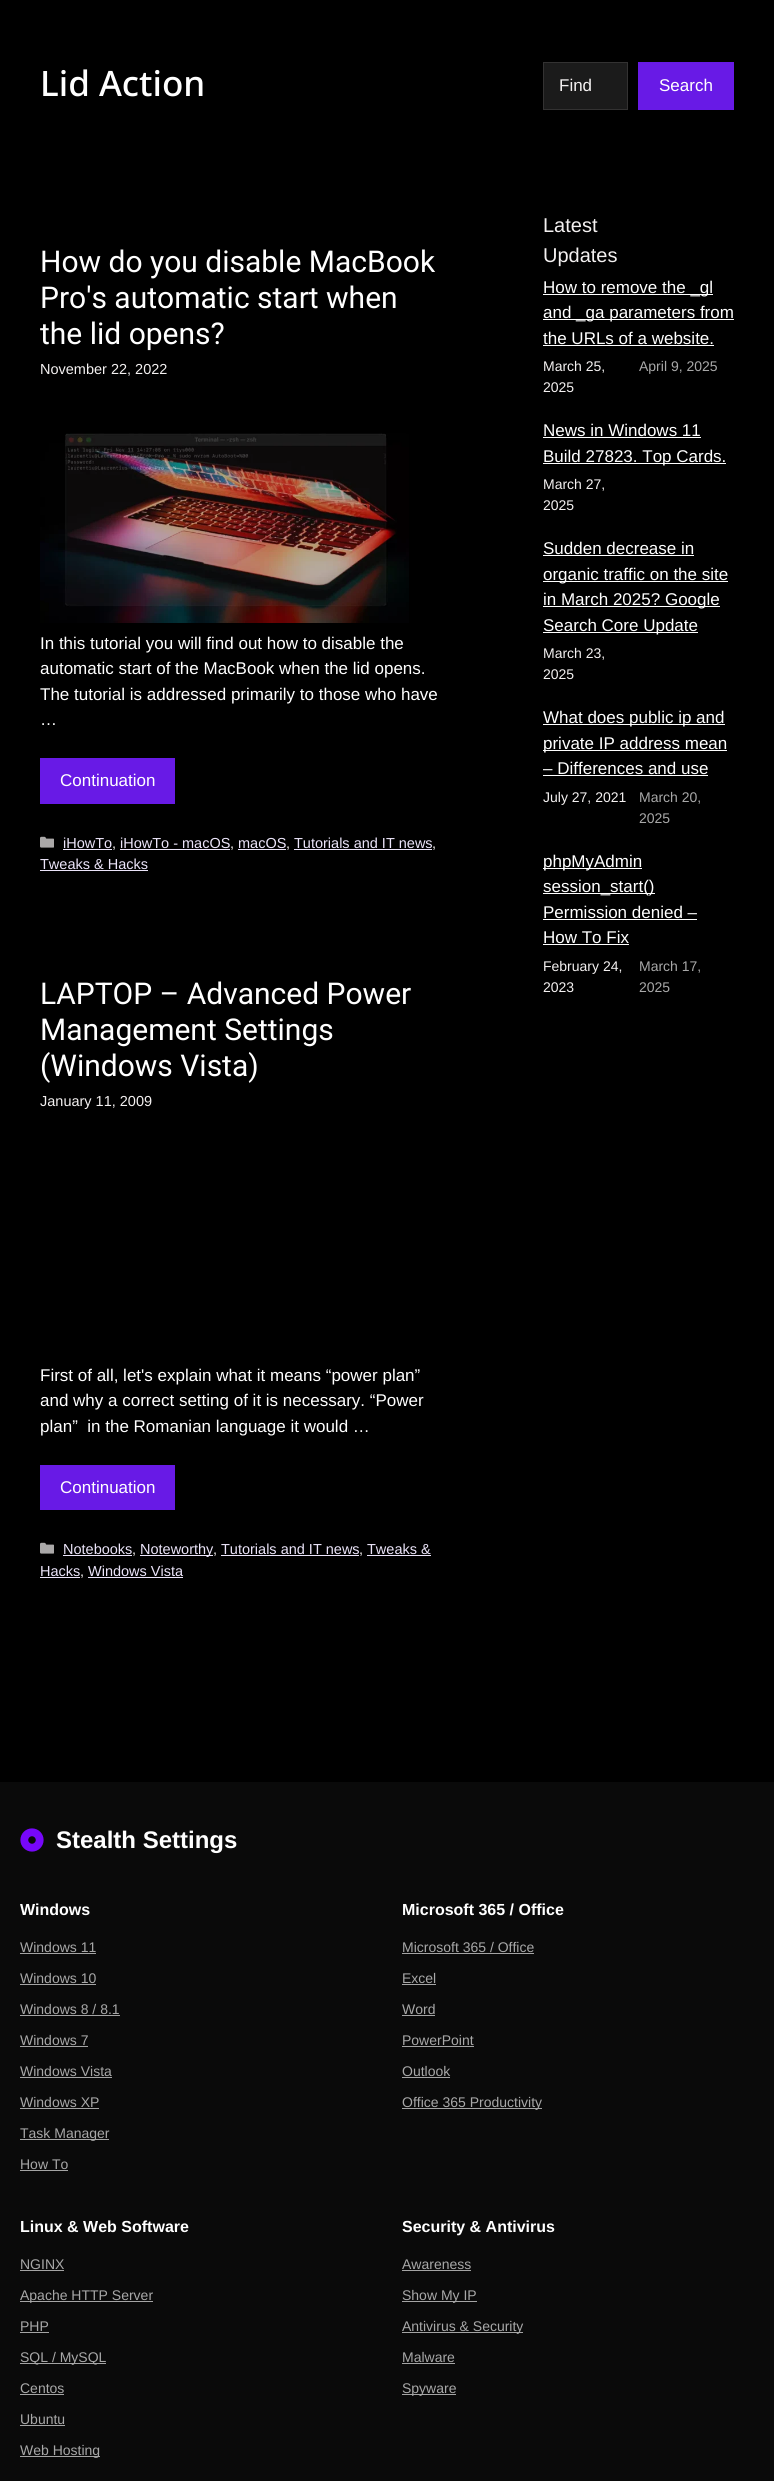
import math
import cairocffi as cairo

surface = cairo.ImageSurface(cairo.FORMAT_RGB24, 774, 2481)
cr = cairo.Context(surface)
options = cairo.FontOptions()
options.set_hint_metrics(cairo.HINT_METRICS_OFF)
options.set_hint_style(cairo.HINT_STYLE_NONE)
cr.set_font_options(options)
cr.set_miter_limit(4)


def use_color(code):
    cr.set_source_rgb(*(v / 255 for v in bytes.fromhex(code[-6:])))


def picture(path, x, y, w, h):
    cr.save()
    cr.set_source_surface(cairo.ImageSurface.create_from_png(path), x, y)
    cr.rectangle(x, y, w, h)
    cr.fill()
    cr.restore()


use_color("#000000")
cr.paint()
cr.select_font_face("Noto Sans Medium")
cr.set_font_size(35)
use_color("#ffffff")
cr.move_to(40, 96)
cr.show_text("Lid Action")
cr.select_font_face("Roboto")
cr.set_font_size(30)
cr.move_to(40, 272)
cr.show_text("How do you disable MacBook")
cr.move_to(40, 308)
cr.show_text("Pro's automatic start when")
cr.move_to(40, 344)
cr.show_text("the lid opens?")
cr.select_font_face("Liberation Sans")
cr.set_font_size(14.5)
use_color("#f4f1f1")
cr.move_to(40, 374)
cr.show_text("November 22, 2022")
picture("img1.png", 40, 433, 369, 190)
cr.set_font_size(17)
use_color("#ffffff")
cr.move_to(40, 649)
cr.show_text("In this tutorial you will find out how to disable the")
cr.move_to(40, 674)
cr.show_text("automatic start of the MacBook when the lid opens.")
cr.move_to(40, 700)
cr.show_text("The tutorial is addressed primarily to those who have")
cr.move_to(40, 725)
cr.show_text("…")
use_color("#681ae6")
cr.rectangle(40, 758, 135, 46)
cr.fill()
use_color("#ffffff")
cr.move_to(60, 786)
cr.show_text("Continuation")
picture("img2.png", 40, 836, 14, 12)
cr.set_font_size(14.5)
use_color("#ece5fa")
cr.move_to(63, 848)
cr.show_text("iHowTo")
cr.rectangle(63, 849, 49, 1)
cr.fill()
use_color("#f4f1f1")
cr.move_to(112, 848)
cr.show_text(",")
use_color("#ece5fa")
cr.move_to(120, 848)
cr.show_text("iHowTo - macOS")
cr.rectangle(120, 849, 110, 1)
cr.fill()
use_color("#f4f1f1")
cr.move_to(230, 848)
cr.show_text(",")
use_color("#ece5fa")
cr.move_to(238, 848)
cr.show_text("macOS")
cr.rectangle(238, 849, 48, 1)
cr.fill()
use_color("#f4f1f1")
cr.move_to(286, 848)
cr.show_text(",")
use_color("#ece5fa")
cr.move_to(294, 848)
cr.show_text("Tutorials and IT news")
cr.rectangle(294, 849, 138, 1)
cr.fill()
use_color("#f4f1f1")
cr.move_to(432, 848)
cr.show_text(",")
use_color("#ece5fa")
cr.move_to(40, 869)
cr.show_text("Tweaks & Hacks")
cr.rectangle(40, 870, 108, 1)
cr.fill()
cr.select_font_face("Roboto")
cr.set_font_size(30)
use_color("#ffffff")
cr.move_to(40, 1004)
cr.show_text("LAPTOP – Advanced Power")
cr.move_to(40, 1040)
cr.show_text("Management Settings")
cr.move_to(40, 1076)
cr.show_text("(Windows Vista)")
cr.select_font_face("Liberation Sans")
cr.set_font_size(14.5)
use_color("#f4f1f1")
cr.move_to(40, 1106)
cr.show_text("January 11, 2009")
cr.set_font_size(17)
use_color("#ffffff")
cr.move_to(40, 1381)
cr.show_text("First of all, let's explain what it means “power plan”")
cr.move_to(40, 1406)
cr.show_text("and why a correct setting of it is necessary. “Power")
cr.move_to(40, 1432)
cr.show_text("plan”  in the Romanian language it would …")
use_color("#681ae6")
cr.rectangle(40, 1465, 135, 45)
cr.fill()
use_color("#ffffff")
cr.move_to(60, 1493)
cr.show_text("Continuation")
picture("img2.png", 40, 1542, 14, 12)
cr.set_font_size(14.5)
use_color("#ece5fa")
cr.move_to(63, 1554)
cr.show_text("Notebooks")
cr.rectangle(63, 1555, 69, 1)
cr.fill()
use_color("#f4f1f1")
cr.move_to(132, 1554)
cr.show_text(",")
use_color("#ece5fa")
cr.rectangle(140, 1555, 73, 1)
cr.fill()
cr.move_to(140, 1554)
cr.show_text("Noteworthy")
use_color("#f4f1f1")
cr.move_to(213, 1554)
cr.show_text(",")
use_color("#ece5fa")
cr.move_to(221, 1554)
cr.show_text("Tutorials and IT news")
cr.rectangle(221, 1555, 138, 1)
cr.fill()
use_color("#f4f1f1")
cr.move_to(359, 1554)
cr.show_text(",")
use_color("#ece5fa")
cr.move_to(367, 1554)
cr.show_text("Tweaks &")
cr.rectangle(367, 1555, 64, 1)
cr.fill()
cr.move_to(40, 1576)
cr.show_text("Hacks")
cr.rectangle(40, 1577, 40, 1)
cr.fill()
use_color("#f4f1f1")
cr.move_to(80, 1576)
cr.show_text(",")
use_color("#ece5fa")
cr.move_to(88, 1576)
cr.show_text("Windows Vista")
cr.rectangle(88, 1577, 95, 1)
cr.fill()
use_color("#1b1b1b")
cr.rectangle(543.5, 62.5, 84, 47)
cr.fill_preserve()
use_color("#333232")
cr.set_line_width(1)
cr.stroke()
cr.set_font_size(17)
use_color("#f4f1f1")
cr.move_to(559, 91)
cr.show_text("Find")
use_color("#681ae6")
cr.rectangle(638, 62, 96, 48)
cr.fill()
use_color("#ffffff")
cr.move_to(659, 91)
cr.show_text("Search")
cr.set_font_size(20)
use_color("#f4f1f1")
cr.move_to(543, 232)
cr.show_text("Latest")
cr.move_to(543, 262)
cr.show_text("Updates")
use_color("#ffffff")
cr.rectangle(543, 294, 170, 1)
cr.fill()
cr.set_font_size(17)
cr.move_to(543, 293)
cr.show_text("How to remove the _gl")
cr.rectangle(543, 319, 191, 1)
cr.fill()
cr.move_to(543, 318)
cr.show_text("and _ga parameters from")
cr.move_to(543, 344)
cr.show_text("the URLs of a website.")
cr.rectangle(543, 345, 171, 1)
cr.fill()
cr.set_font_size(14)
use_color("#f4f1f1")
cr.move_to(543, 371)
cr.show_text("March 25,")
cr.move_to(543, 392)
cr.show_text("2025")
use_color("#a8a8a8")
cr.move_to(639, 371)
cr.show_text("April 9, 2025")
cr.set_font_size(17)
use_color("#ffffff")
cr.move_to(543, 436)
cr.show_text("News in Windows 11")
cr.rectangle(543, 437, 158, 1)
cr.fill()
cr.rectangle(543, 463, 183, 1)
cr.fill()
cr.move_to(543, 462)
cr.show_text("Build 27823. Top Cards.")
cr.set_font_size(14)
use_color("#f4f1f1")
cr.move_to(543, 489)
cr.show_text("March 27,")
cr.move_to(543, 510)
cr.show_text("2025")
cr.set_font_size(17)
use_color("#ffffff")
cr.move_to(543, 554)
cr.show_text("Sudden decrease in")
cr.rectangle(543, 555, 151, 1)
cr.fill()
cr.rectangle(543, 581, 185, 1)
cr.fill()
cr.move_to(543, 580)
cr.show_text("organic traffic on the site")
cr.rectangle(543, 606, 177, 1)
cr.fill()
cr.move_to(543, 605)
cr.show_text("in March 2025? Google")
cr.rectangle(543, 632, 155, 1)
cr.fill()
cr.move_to(543, 631)
cr.show_text("Search Core Update")
cr.set_font_size(14)
use_color("#f4f1f1")
cr.move_to(543, 658)
cr.show_text("March 23,")
cr.move_to(543, 679)
cr.show_text("2025")
use_color("#ffffff")
cr.rectangle(543, 724, 182, 1)
cr.fill()
cr.set_font_size(17)
cr.move_to(543, 723)
cr.show_text("What does public ip and")
cr.rectangle(543, 750, 184, 1)
cr.fill()
cr.move_to(543, 749)
cr.show_text("private IP address mean")
cr.move_to(543, 774)
cr.show_text("– Differences and use")
cr.rectangle(543, 775, 165, 1)
cr.fill()
cr.set_font_size(14)
use_color("#f4f1f1")
cr.move_to(543, 802)
cr.show_text("July 27, 2021")
use_color("#a8a8a8")
cr.move_to(639, 802)
cr.show_text("March 20,")
cr.move_to(639, 823)
cr.show_text("2025")
use_color("#ffffff")
cr.rectangle(543, 868, 99, 1)
cr.fill()
cr.set_font_size(17)
cr.move_to(543, 867)
cr.show_text("phpMyAdmin")
cr.rectangle(543, 893, 112, 1)
cr.fill()
cr.move_to(543, 892)
cr.show_text("session_start()")
cr.move_to(543, 918)
cr.show_text("Permission denied –")
cr.rectangle(543, 919, 154, 1)
cr.fill()
cr.move_to(543, 943)
cr.show_text("How To Fix")
cr.rectangle(543, 944, 86, 1)
cr.fill()
cr.set_font_size(14)
use_color("#f4f1f1")
cr.move_to(543, 971)
cr.show_text("February 24,")
cr.move_to(543, 992)
cr.show_text("2023")
use_color("#a8a8a8")
cr.move_to(639, 971)
cr.show_text("March 17,")
cr.move_to(639, 992)
cr.show_text("2025")
use_color("#0a0a0a")
cr.rectangle(0, 1782, 774, 699)
cr.fill()
picture("img3.png", 20, 1828, 24, 24)
cr.select_font_face("Liberation Sans", cairo.FONT_SLANT_NORMAL, cairo.FONT_WEIGHT_BOLD)
cr.set_font_size(24)
use_color("#ffffff")
cr.move_to(56, 1848)
cr.show_text("Stealth Settings")
cr.set_font_size(16)
cr.move_to(20, 1915)
cr.show_text("Windows")
cr.select_font_face("Liberation Sans")
cr.set_font_size(14)
use_color("#a8a8a8")
cr.move_to(20, 1952)
cr.show_text("Windows 11")
use_color("#a4a4a4")
cr.rectangle(20, 1953, 76, 1)
cr.fill()
use_color("#a8a8a8")
cr.move_to(20, 1983)
cr.show_text("Windows 10")
use_color("#a4a4a4")
cr.rectangle(20, 1984, 76, 1)
cr.fill()
use_color("#a8a8a8")
cr.move_to(20, 2014)
cr.show_text("Windows 8 / 8.1")
use_color("#a4a4a4")
cr.rectangle(20, 2015, 100, 1)
cr.fill()
use_color("#a8a8a8")
cr.move_to(20, 2045)
cr.show_text("Windows 7")
use_color("#a4a4a4")
cr.rectangle(20, 2046, 68, 1)
cr.fill()
use_color("#a8a8a8")
cr.move_to(20, 2076)
cr.show_text("Windows Vista")
use_color("#a4a4a4")
cr.rectangle(20, 2077, 92, 1)
cr.fill()
use_color("#a8a8a8")
cr.move_to(20, 2107)
cr.show_text("Windows XP")
use_color("#a4a4a4")
cr.rectangle(20, 2108, 79, 1)
cr.fill()
cr.rectangle(20, 2139, 89, 1)
cr.fill()
use_color("#a8a8a8")
cr.move_to(20, 2138)
cr.show_text("Task Manager")
cr.move_to(20, 2169)
cr.show_text("How To")
use_color("#a4a4a4")
cr.rectangle(20, 2170, 48, 1)
cr.fill()
cr.select_font_face("Liberation Sans", cairo.FONT_SLANT_NORMAL, cairo.FONT_WEIGHT_BOLD)
cr.set_font_size(16)
use_color("#ffffff")
cr.move_to(402, 1915)
cr.show_text("Microsoft 365 / Office")
cr.select_font_face("Liberation Sans")
cr.set_font_size(14)
use_color("#a8a8a8")
cr.move_to(402, 1952)
cr.show_text("Microsoft 365 / Office")
use_color("#a4a4a4")
cr.rectangle(402, 1953, 132, 1)
cr.fill()
use_color("#a8a8a8")
cr.move_to(402, 1983)
cr.show_text("Excel")
use_color("#a4a4a4")
cr.rectangle(402, 1984, 34, 1)
cr.fill()
use_color("#a8a8a8")
cr.move_to(402, 2014)
cr.show_text("Word")
use_color("#a4a4a4")
cr.rectangle(402, 2015, 33, 1)
cr.fill()
use_color("#a8a8a8")
cr.move_to(402, 2045)
cr.show_text("PowerPoint")
use_color("#a4a4a4")
cr.rectangle(402, 2046, 72, 1)
cr.fill()
use_color("#a8a8a8")
cr.move_to(402, 2076)
cr.show_text("Outlook")
use_color("#a4a4a4")
cr.rectangle(402, 2077, 48, 1)
cr.fill()
cr.rectangle(402, 2108, 140, 1)
cr.fill()
use_color("#a8a8a8")
cr.move_to(402, 2107)
cr.show_text("Office 365 Productivity")
cr.select_font_face("Liberation Sans", cairo.FONT_SLANT_NORMAL, cairo.FONT_WEIGHT_BOLD)
cr.set_font_size(16)
use_color("#ffffff")
cr.move_to(20, 2232)
cr.show_text("Linux & Web Software")
cr.select_font_face("Liberation Sans")
cr.set_font_size(14)
use_color("#a8a8a8")
cr.move_to(20, 2269)
cr.show_text("NGINX")
use_color("#a4a4a4")
cr.rectangle(20, 2270, 44, 1)
cr.fill()
cr.rectangle(20, 2301, 133, 1)
cr.fill()
use_color("#a8a8a8")
cr.move_to(20, 2300)
cr.show_text("Apache HTTP Server")
cr.move_to(20, 2331)
cr.show_text("PHP")
use_color("#a4a4a4")
cr.rectangle(20, 2332, 29, 1)
cr.fill()
cr.rectangle(20, 2363, 86, 1)
cr.fill()
use_color("#a8a8a8")
cr.move_to(20, 2362)
cr.show_text("SQL / MySQL")
cr.move_to(20, 2393)
cr.show_text("Centos")
use_color("#a4a4a4")
cr.rectangle(20, 2394, 44, 1)
cr.fill()
use_color("#a8a8a8")
cr.move_to(20, 2424)
cr.show_text("Ubuntu")
use_color("#a4a4a4")
cr.rectangle(20, 2425, 45, 1)
cr.fill()
cr.rectangle(20, 2456, 80, 1)
cr.fill()
use_color("#a8a8a8")
cr.move_to(20, 2455)
cr.show_text("Web Hosting")
cr.select_font_face("Liberation Sans", cairo.FONT_SLANT_NORMAL, cairo.FONT_WEIGHT_BOLD)
cr.set_font_size(16)
use_color("#ffffff")
cr.move_to(402, 2232)
cr.show_text("Security & Antivirus")
cr.select_font_face("Liberation Sans")
cr.set_font_size(14)
use_color("#a8a8a8")
cr.move_to(402, 2269)
cr.show_text("Awareness")
use_color("#a4a4a4")
cr.rectangle(402, 2270, 69, 1)
cr.fill()
cr.rectangle(402, 2301, 75, 1)
cr.fill()
use_color("#a8a8a8")
cr.move_to(402, 2300)
cr.show_text("Show My IP")
use_color("#a4a4a4")
cr.rectangle(402, 2332, 121, 1)
cr.fill()
use_color("#a8a8a8")
cr.move_to(402, 2331)
cr.show_text("Antivirus & Security")
cr.move_to(402, 2362)
cr.show_text("Malware")
use_color("#a4a4a4")
cr.rectangle(402, 2363, 53, 1)
cr.fill()
cr.rectangle(402, 2394, 54, 1)
cr.fill()
use_color("#a8a8a8")
cr.move_to(402, 2393)
cr.show_text("Spyware")
surface.write_to_png("result.png")
